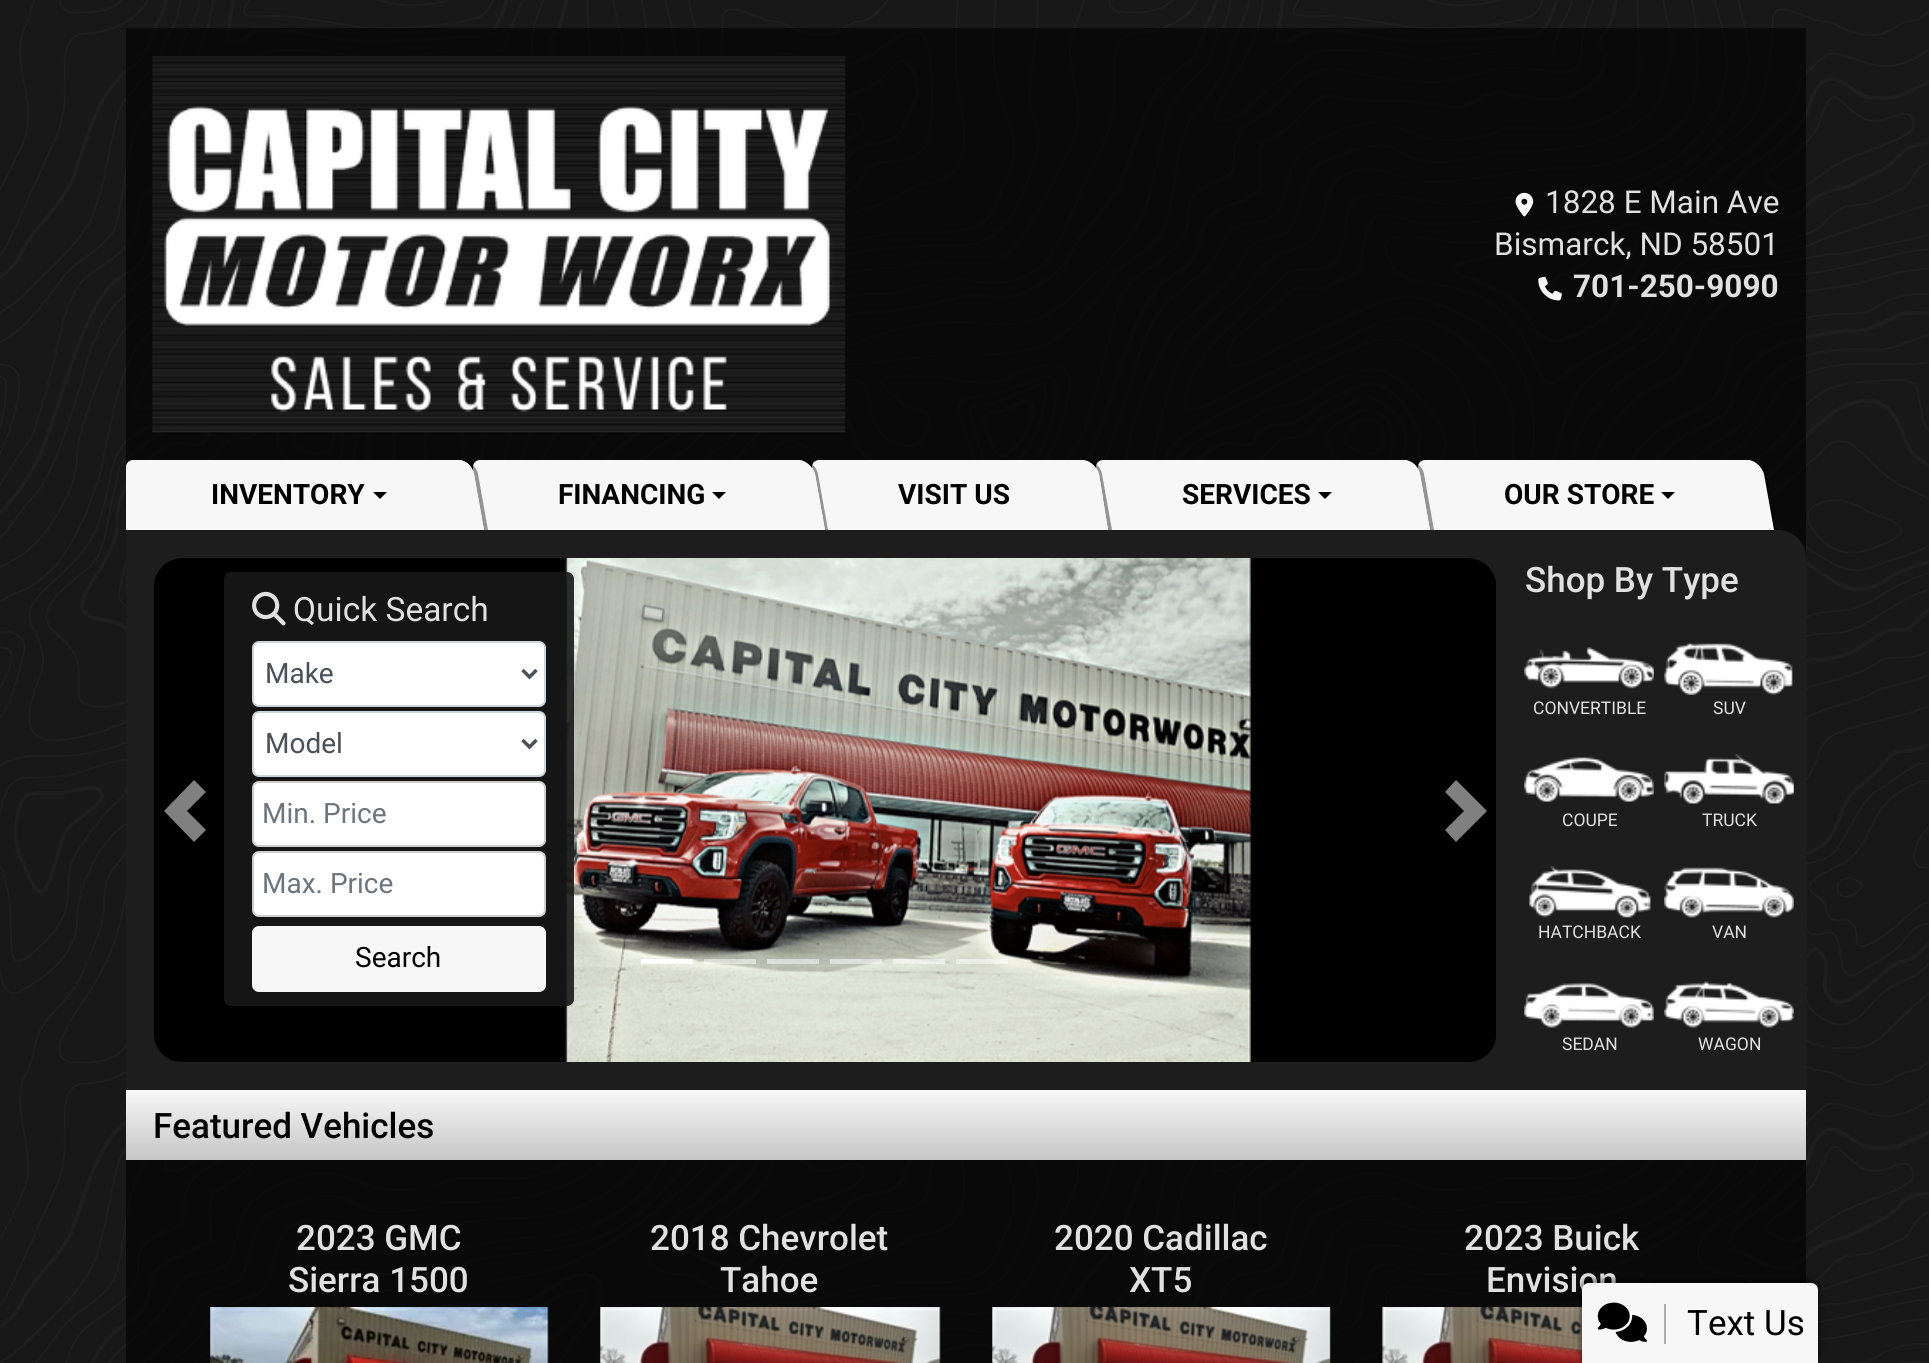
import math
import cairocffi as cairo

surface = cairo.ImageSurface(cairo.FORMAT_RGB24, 1929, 1363)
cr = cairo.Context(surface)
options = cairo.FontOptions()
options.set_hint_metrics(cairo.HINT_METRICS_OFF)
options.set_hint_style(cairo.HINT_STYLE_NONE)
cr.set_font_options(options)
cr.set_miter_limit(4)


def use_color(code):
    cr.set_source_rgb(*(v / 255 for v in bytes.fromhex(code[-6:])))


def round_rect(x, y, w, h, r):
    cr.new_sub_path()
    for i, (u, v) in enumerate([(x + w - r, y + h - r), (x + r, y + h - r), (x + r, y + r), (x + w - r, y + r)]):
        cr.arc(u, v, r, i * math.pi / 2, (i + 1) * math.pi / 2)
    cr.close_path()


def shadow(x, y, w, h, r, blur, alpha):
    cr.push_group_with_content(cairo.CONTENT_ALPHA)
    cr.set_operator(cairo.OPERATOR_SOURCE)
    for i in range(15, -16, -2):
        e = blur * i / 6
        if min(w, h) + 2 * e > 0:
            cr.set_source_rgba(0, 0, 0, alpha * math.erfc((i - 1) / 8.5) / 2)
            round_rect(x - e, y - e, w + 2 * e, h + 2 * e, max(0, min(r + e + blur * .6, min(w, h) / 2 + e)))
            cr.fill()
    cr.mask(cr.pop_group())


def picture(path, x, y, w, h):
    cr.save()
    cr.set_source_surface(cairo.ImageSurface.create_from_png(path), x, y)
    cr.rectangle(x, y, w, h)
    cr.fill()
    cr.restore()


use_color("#181818")
cr.paint()
picture("img1.png", 0, 0, 1929, 1363)
cr.set_source_rgba(0.016, 0.016, 0.016, 0.7)
cr.rectangle(126, 28, 1680, 1335)
cr.fill()
picture("img2.png", 152, 56, 694, 377)
picture("img3.png", 1515, 192, 19, 25)
cr.select_font_face("Roboto")
cr.set_font_size(31.5)
use_color("#e1e1e1")
cr.move_to(1545, 213)
cr.show_text("1828 E Main Ave")
cr.move_to(1494, 255)
cr.show_text("Bismarck, ND 58501")
picture("img4.png", 1538, 276, 24, 25)
cr.select_font_face("Roboto", cairo.FONT_SLANT_NORMAL, cairo.FONT_WEIGHT_BOLD)
cr.move_to(1573, 297)
cr.show_text("701-250-9090")
use_color("#f7f7f7")
cr.new_path()
cr.move_to(133, 460)
cr.line_to(459, 460)
cr.curve_to(466.5, 460, 473, 466.5, 473, 474)
cr.line_to(473, 530)
cr.line_to(126, 530)
cr.line_to(126, 467)
cr.curve_to(126, 463, 129, 460, 133, 460)
cr.close_path()
cr.fill()
cr.set_font_size(28)
use_color("#000000")
cr.move_to(211, 504)
cr.show_text("INVENTORY")
cr.new_path()
cr.move_to(373, 492)
cr.line_to(387, 492)
cr.line_to(380, 499)
cr.close_path()
cr.fill()
use_color("#f7f7f7")
cr.new_path()
cr.move_to(480, 460)
cr.line_to(798, 460)
cr.curve_to(805.5, 460, 812, 466.5, 812, 474)
cr.line_to(812, 530)
cr.line_to(473, 530)
cr.line_to(473, 467)
cr.curve_to(473, 463, 476, 460, 480, 460)
cr.close_path()
cr.fill()
cr.set_source_rgba(0, 0, 0, 0.4)
cr.new_path()
cr.move_to(447, 460)
cr.line_to(458, 460)
cr.curve_to(466, 460, 473, 467, 474, 474)
cr.line_to(484, 530)
cr.line_to(488, 530)
cr.line_to(478, 474)
cr.curve_to(477, 467, 469, 460, 461, 460)
cr.close_path()
cr.fill()
use_color("#f7f7f7")
cr.new_path()
cr.move_to(444, 460)
cr.line_to(458, 460)
cr.curve_to(466, 460, 473, 467, 474, 474)
cr.line_to(484, 530)
cr.line_to(456, 530)
cr.close_path()
cr.fill()
use_color("#000000")
cr.move_to(558, 504)
cr.show_text("FINANCING")
cr.new_path()
cr.move_to(712, 492)
cr.line_to(726, 492)
cr.line_to(719, 499)
cr.close_path()
cr.fill()
use_color("#f7f7f7")
cr.new_path()
cr.move_to(819, 460)
cr.line_to(1082, 460)
cr.curve_to(1089.5, 460, 1096, 466.5, 1096, 474)
cr.line_to(1096, 530)
cr.line_to(812, 530)
cr.line_to(812, 467)
cr.curve_to(812, 463, 815, 460, 819, 460)
cr.close_path()
cr.fill()
cr.set_source_rgba(0, 0, 0, 0.4)
cr.new_path()
cr.move_to(788, 460)
cr.line_to(798, 460)
cr.curve_to(806, 460, 813, 467, 815, 474)
cr.line_to(825, 530)
cr.line_to(828, 530)
cr.line_to(818, 474)
cr.curve_to(817, 467, 809, 460, 802, 460)
cr.close_path()
cr.fill()
use_color("#f7f7f7")
cr.new_path()
cr.move_to(784, 460)
cr.line_to(798, 460)
cr.curve_to(806, 460, 813, 467, 815, 474)
cr.line_to(825, 530)
cr.line_to(797, 530)
cr.close_path()
cr.fill()
use_color("#000000")
cr.move_to(898, 504)
cr.show_text("VISIT US")
use_color("#f7f7f7")
cr.new_path()
cr.move_to(1103, 460)
cr.line_to(1404, 460)
cr.curve_to(1411.5, 460, 1418, 466.5, 1418, 474)
cr.line_to(1418, 530)
cr.line_to(1096, 530)
cr.line_to(1096, 467)
cr.curve_to(1096, 463, 1099, 460, 1103, 460)
cr.close_path()
cr.fill()
cr.set_source_rgba(0, 0, 0, 0.4)
cr.new_path()
cr.move_to(1072, 460)
cr.line_to(1082, 460)
cr.curve_to(1090, 460, 1097, 467, 1099, 474)
cr.line_to(1108, 530)
cr.line_to(1112, 530)
cr.line_to(1102, 474)
cr.curve_to(1101, 467, 1093, 460, 1086, 460)
cr.close_path()
cr.fill()
use_color("#f7f7f7")
cr.new_path()
cr.move_to(1068, 460)
cr.line_to(1082, 460)
cr.curve_to(1090, 460, 1097, 467, 1099, 474)
cr.line_to(1108, 530)
cr.line_to(1080, 530)
cr.close_path()
cr.fill()
use_color("#000000")
cr.move_to(1182, 504)
cr.show_text("SERVICES")
cr.new_path()
cr.move_to(1318, 492)
cr.line_to(1332, 492)
cr.line_to(1325, 499)
cr.close_path()
cr.fill()
use_color("#f7f7f7")
cr.new_path()
cr.move_to(1425, 460)
cr.line_to(1747, 460)
cr.curve_to(1754.5, 460, 1761, 466.5, 1761, 474)
cr.line_to(1761, 530)
cr.line_to(1418, 530)
cr.line_to(1418, 467)
cr.curve_to(1418, 463, 1421, 460, 1425, 460)
cr.close_path()
cr.fill()
cr.set_source_rgba(0, 0, 0, 0.4)
cr.new_path()
cr.move_to(1393, 460)
cr.line_to(1404, 460)
cr.curve_to(1412, 460, 1419, 467, 1420, 474)
cr.line_to(1430, 530)
cr.line_to(1434, 530)
cr.line_to(1424, 474)
cr.curve_to(1423, 467, 1415, 460, 1407, 460)
cr.close_path()
cr.fill()
use_color("#f7f7f7")
cr.new_path()
cr.move_to(1390, 460)
cr.line_to(1404, 460)
cr.curve_to(1412, 460, 1419, 467, 1420, 474)
cr.line_to(1430, 530)
cr.line_to(1402, 530)
cr.close_path()
cr.fill()
use_color("#000000")
cr.move_to(1504, 504)
cr.show_text("OUR STORE")
cr.new_path()
cr.move_to(1661, 492)
cr.line_to(1675, 492)
cr.line_to(1668, 499)
cr.close_path()
cr.fill()
cr.set_source_rgba(0, 0, 0, 0.4)
cr.new_path()
cr.move_to(1737, 460)
cr.line_to(1747, 460)
cr.curve_to(1755, 460, 1762, 467, 1764, 474)
cr.line_to(1774, 530)
cr.line_to(1777, 530)
cr.line_to(1767, 474)
cr.curve_to(1766, 467, 1759, 460, 1751, 460)
cr.close_path()
cr.fill()
use_color("#f7f7f7")
cr.new_path()
cr.move_to(1733, 460)
cr.line_to(1747, 460)
cr.curve_to(1755, 460, 1762, 467, 1764, 474)
cr.line_to(1774, 530)
cr.line_to(1746, 530)
cr.close_path()
cr.fill()
use_color("#1d1d1d")
cr.new_path()
cr.move_to(126, 530)
cr.line_to(1778, 530)
cr.curve_to(1793.5, 530, 1806, 542.5, 1806, 558)
cr.line_to(1806, 1090)
cr.line_to(126, 1090)
cr.close_path()
cr.fill()
picture("img5.png", 154, 558, 1342, 504)
use_color("#808080")
cr.new_path()
cr.move_to(194, 780)
cr.line_to(164, 811)
cr.line_to(194, 842)
cr.line_to(206, 830)
cr.line_to(187, 811)
cr.line_to(206, 792)
cr.close_path()
cr.fill()
cr.new_path()
cr.move_to(1456, 780)
cr.line_to(1445, 792)
cr.line_to(1464, 811)
cr.line_to(1445, 830)
cr.line_to(1456, 842)
cr.line_to(1487, 811)
cr.close_path()
cr.fill()
use_color("#ffffff")
cr.rectangle(641, 959, 52, 5)
cr.fill()
cr.set_source_rgba(1, 1, 1, 0.5)
cr.rectangle(704, 959, 52, 5)
cr.fill()
cr.rectangle(767, 959, 52, 5)
cr.fill()
cr.rectangle(830, 959, 52, 5)
cr.fill()
cr.rectangle(893, 959, 52, 5)
cr.fill()
cr.rectangle(956, 959, 52, 5)
cr.fill()
cr.set_source_rgba(0.094, 0.094, 0.094, 0.9)
round_rect(224, 572, 350, 434, 7)
cr.fill()
picture("img6.png", 252, 591, 34, 35)
cr.select_font_face("Roboto")
cr.set_font_size(33.5)
use_color("#e1e1e1")
cr.move_to(293, 621)
cr.show_text("Quick Search")
use_color("#ffffff")
round_rect(253, 642, 292, 64, 6)
cr.fill_preserve()
use_color("#ced4da")
cr.stroke()
cr.new_path()
cr.move_to(522.5, 670)
cr.line_to(529.5, 677)
cr.line_to(536.5, 670)
use_color("#495057")
cr.set_line_width(3.5)
cr.stroke()
cr.set_font_size(28)
cr.move_to(265, 683)
cr.show_text("Make")
use_color("#ffffff")
round_rect(253, 712, 292, 64, 6)
cr.fill_preserve()
use_color("#ced4da")
cr.set_line_width(2)
cr.stroke()
cr.new_path()
cr.move_to(522.5, 740)
cr.line_to(529.5, 747)
cr.line_to(536.5, 740)
use_color("#495057")
cr.set_line_width(3.5)
cr.stroke()
cr.move_to(265, 753)
cr.show_text("Model")
use_color("#ffffff")
round_rect(253, 782, 292, 64, 6)
cr.fill_preserve()
use_color("#cecece")
cr.set_line_width(2)
cr.stroke()
use_color("#6c757d")
cr.move_to(262, 823)
cr.show_text("Min. Price")
use_color("#ffffff")
round_rect(253, 852, 292, 64, 6)
cr.fill_preserve()
use_color("#cecece")
cr.stroke()
use_color("#6c757d")
cr.move_to(262, 893)
cr.show_text("Max. Price")
use_color("#f7f7f7")
round_rect(252, 926, 294, 66, 7)
cr.fill()
use_color("#000000")
cr.move_to(355, 967)
cr.show_text("Search")
cr.select_font_face("Roboto Medium")
cr.set_font_size(35)
use_color("#e1e1e1")
cr.move_to(1525, 592)
cr.show_text("Shop By Type")
picture("img7.png", 1524, 647, 130, 42)
cr.select_font_face("Roboto")
cr.set_font_size(17.5)
cr.move_to(1533, 714)
cr.show_text("CONVERTIBLE")
picture("img8.png", 1664, 643, 129, 52)
cr.move_to(1713, 714)
cr.show_text("SUV")
picture("img9.png", 1524, 757, 130, 45)
cr.move_to(1562, 826)
cr.show_text("COUPE")
picture("img10.png", 1664, 754, 130, 50)
cr.move_to(1702, 826)
cr.show_text("TRUCK")
picture("img11.png", 1529, 866, 122, 52)
cr.move_to(1538, 938)
cr.show_text("HATCHBACK")
picture("img12.png", 1664, 867, 130, 51)
cr.move_to(1712, 938)
cr.show_text("VAN")
picture("img13.png", 1524, 983, 130, 45)
cr.move_to(1562, 1050)
cr.show_text("SEDAN")
picture("img14.png", 1664, 981, 130, 47)
cr.move_to(1698, 1050)
cr.show_text("WAGON")
gradient = cairo.LinearGradient(966, 1090, 966, 1160)
gradient.add_color_stop_rgba(0, 0.969, 0.969, 0.969, 1)
gradient.add_color_stop_rgba(1, 0.776, 0.776, 0.776, 1)
cr.set_source(gradient)
cr.rectangle(126, 1090, 1680, 70)
cr.fill()
cr.select_font_face("Roboto Medium")
cr.set_font_size(35)
use_color("#000000")
cr.move_to(153, 1138)
cr.show_text("Featured Vehicles")
use_color("#e1e1e1")
cr.move_to(296, 1250)
cr.show_text("2023 GMC")
cr.move_to(288, 1292)
cr.show_text("Sierra 1500")
picture("img15.png", 210, 1307, 339, 56)
cr.move_to(650, 1250)
cr.show_text("2018 Chevrolet")
cr.move_to(720, 1292)
cr.show_text("Tahoe")
picture("img16.png", 600, 1307, 341, 56)
cr.move_to(1054, 1250)
cr.show_text("2020 Cadillac")
cr.move_to(1129, 1292)
cr.show_text("XT5")
picture("img17.png", 992, 1307, 339, 56)
cr.move_to(1464, 1250)
cr.show_text("2023 Buick")
cr.move_to(1486, 1292)
cr.show_text("Envision")
picture("img18.png", 1382, 1307, 200, 56)
use_color("#000000")
shadow(1580, 1279, 240, 84, 9, 2, 0.25)
shadow(1579, 1278, 243, 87, 11, 2.5, 0.15)
use_color("#f7f7f7")
cr.new_path()
cr.move_to(1589, 1283)
cr.line_to(1811, 1283)
cr.curve_to(1815, 1283, 1818, 1286, 1818, 1290)
cr.line_to(1818, 1363)
cr.line_to(1582, 1363)
cr.line_to(1582, 1290)
cr.curve_to(1582, 1286, 1585, 1283, 1589, 1283)
cr.close_path()
cr.fill()
use_color("#adadad")
cr.rectangle(1664, 1304, 2, 40)
cr.fill()
picture("img19.png", 1597, 1302, 50, 40)
cr.select_font_face("Roboto")
use_color("#000000")
cr.move_to(1687, 1335)
cr.show_text("Text Us")
surface.write_to_png("result.png")
